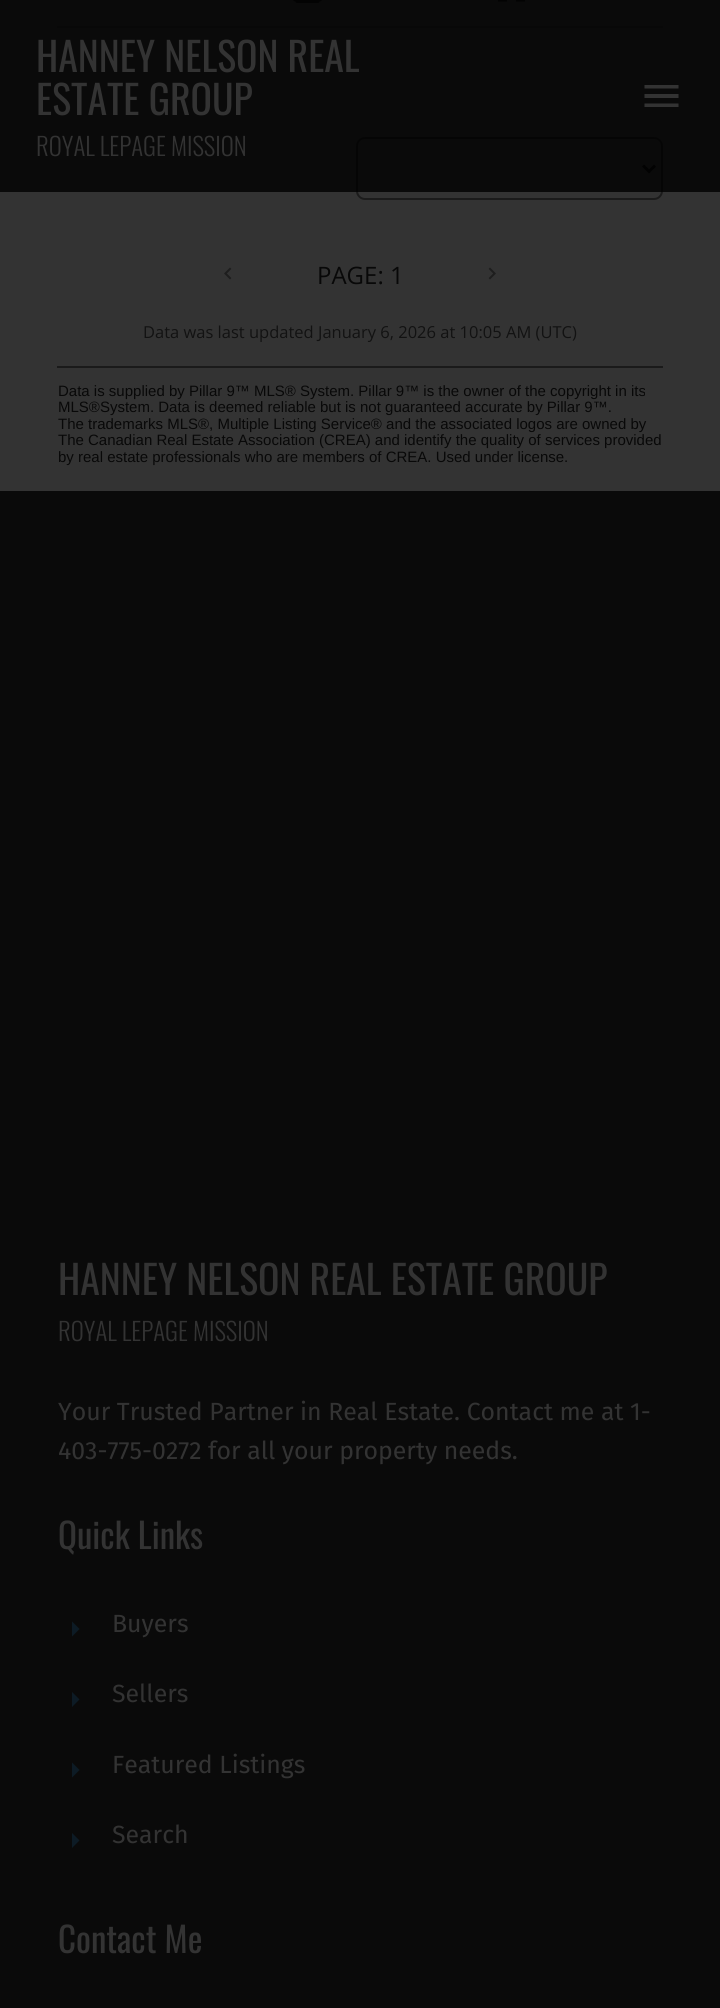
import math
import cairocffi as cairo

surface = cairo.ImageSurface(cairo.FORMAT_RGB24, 720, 2008)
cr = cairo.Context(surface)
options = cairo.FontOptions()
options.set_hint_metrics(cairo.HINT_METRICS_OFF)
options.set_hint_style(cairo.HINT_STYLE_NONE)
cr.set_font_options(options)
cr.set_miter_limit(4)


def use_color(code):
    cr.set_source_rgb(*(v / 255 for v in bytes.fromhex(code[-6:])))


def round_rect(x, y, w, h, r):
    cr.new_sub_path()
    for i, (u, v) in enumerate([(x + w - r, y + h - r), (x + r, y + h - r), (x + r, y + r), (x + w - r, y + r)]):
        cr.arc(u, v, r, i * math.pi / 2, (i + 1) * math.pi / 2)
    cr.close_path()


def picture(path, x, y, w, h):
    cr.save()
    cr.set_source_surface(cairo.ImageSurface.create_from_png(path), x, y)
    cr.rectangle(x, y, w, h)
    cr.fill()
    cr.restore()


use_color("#333333")
cr.paint()
picture("img1.png", 293, 0, 29, 3)
picture("img2.png", 498, 0, 27, 2)
use_color("#282828")
cr.rectangle(57, 26, 606, 2)
cr.fill()
round_rect(357, 138, 305, 61, 8)
use_color("#1b1b1b")
cr.stroke()
cr.new_path()
cr.move_to(643, 165.5)
cr.line_to(649, 171.5)
cr.line_to(655, 165.5)
use_color("#0a0a0a")
cr.set_line_width(3)
cr.stroke()
cr.set_source_rgba(0, 0, 0, 0.8)
cr.rectangle(0, 0, 720, 192)
cr.fill()
cr.select_font_face("Oswald")
cr.set_font_size(39.75)
use_color("#333333")
cr.move_to(36, 72)
cr.show_text("HANNEY NELSON REAL")
cr.move_to(36, 115)
cr.show_text("ESTATE GROUP")
cr.select_font_face("Oswald Light")
cr.set_font_size(24.85)
cr.move_to(36, 156)
cr.show_text("ROYAL LEPAGE MISSION")
cr.new_path()
cr.move_to(644.5, 107)
cr.line_to(678.5, 107)
cr.line_to(678.5, 103.5)
cr.line_to(644.5, 103.5)
cr.close_path()
cr.move_to(644.5, 98)
cr.line_to(678.5, 98)
cr.line_to(678.5, 94)
cr.line_to(644.5, 94)
cr.close_path()
cr.move_to(644.5, 85)
cr.line_to(644.5, 88.5)
cr.line_to(678.5, 88.5)
cr.line_to(678.5, 85)
cr.close_path()
cr.fill()
picture("img3.png", 224, 267, 8, 13)
cr.select_font_face("Open Sans")
cr.set_font_size(24)
use_color("#080808")
cr.move_to(317, 284)
cr.show_text("PAGE: 1")
picture("img4.png", 488, 267, 8, 13)
cr.set_font_size(16.5)
use_color("#121212")
cr.move_to(143, 338)
cr.show_text("Data was last updated January 6, 2026 at 10:05 AM (UTC)")
use_color("#1a1a1a")
cr.rectangle(57, 366, 606, 2)
cr.fill()
cr.select_font_face("Liberation Sans")
cr.set_font_size(15)
use_color("#080808")
cr.move_to(58, 396)
cr.show_text("Data is supplied by Pillar 9™ MLS® System. Pillar 9™ is the owner of the copyright in its")
cr.move_to(58, 412)
cr.show_text("MLS®System. Data is deemed reliable but is not guaranteed accurate by Pillar 9™.")
cr.move_to(58, 429)
cr.show_text("The trademarks MLS®, Multiple Listing Service® and the associated logos are owned by")
cr.move_to(58, 445)
cr.show_text("The Canadian Real Estate Association (CREA) and identify the quality of services provided")
cr.move_to(58, 462)
cr.show_text("by real estate professionals who are members of CREA. Used under license.")
use_color("#0a0a0a")
cr.rectangle(0, 491, 720, 1517)
cr.fill()
cr.select_font_face("Oswald")
cr.set_font_size(39.75)
use_color("#333333")
cr.move_to(58, 1295)
cr.show_text("HANNEY NELSON REAL ESTATE GROUP")
cr.select_font_face("Oswald Light")
cr.set_font_size(24.85)
cr.move_to(58, 1341)
cr.show_text("ROYAL LEPAGE MISSION")
cr.select_font_face("Fira Sans")
cr.move_to(58, 1420)
cr.show_text("Your Trusted Partner in Real Estate. Contact me at 1-")
cr.move_to(58, 1459)
cr.show_text("403-775-0272 for all your property needs.")
cr.select_font_face("Oswald")
cr.set_font_size(35)
cr.move_to(58, 1549)
cr.show_text("Quick Links")
use_color("#0d1b25")
cr.new_path()
cr.move_to(72, 1636.5)
cr.line_to(79.5, 1629)
cr.line_to(72, 1621.5)
cr.close_path()
cr.fill()
cr.select_font_face("Fira Sans")
cr.set_font_size(24.85)
use_color("#333333")
cr.move_to(112, 1632)
cr.show_text("Buyers")
use_color("#0d1b25")
cr.new_path()
cr.move_to(72, 1707)
cr.line_to(79.5, 1699.5)
cr.line_to(72, 1692)
cr.close_path()
cr.fill()
use_color("#333333")
cr.move_to(112, 1702)
cr.show_text("Sellers")
use_color("#0d1b25")
cr.new_path()
cr.move_to(72, 1777.5)
cr.line_to(79.5, 1770)
cr.line_to(72, 1762.5)
cr.close_path()
cr.fill()
use_color("#333333")
cr.move_to(112, 1773)
cr.show_text("Featured Listings")
use_color("#0d1b25")
cr.new_path()
cr.move_to(72, 1848)
cr.line_to(79.5, 1840.5)
cr.line_to(72, 1833)
cr.close_path()
cr.fill()
use_color("#333333")
cr.move_to(112, 1843)
cr.show_text("Search")
cr.select_font_face("Oswald")
cr.set_font_size(35)
cr.move_to(58, 1953)
cr.show_text("Contact Me")
surface.write_to_png("result.png")
